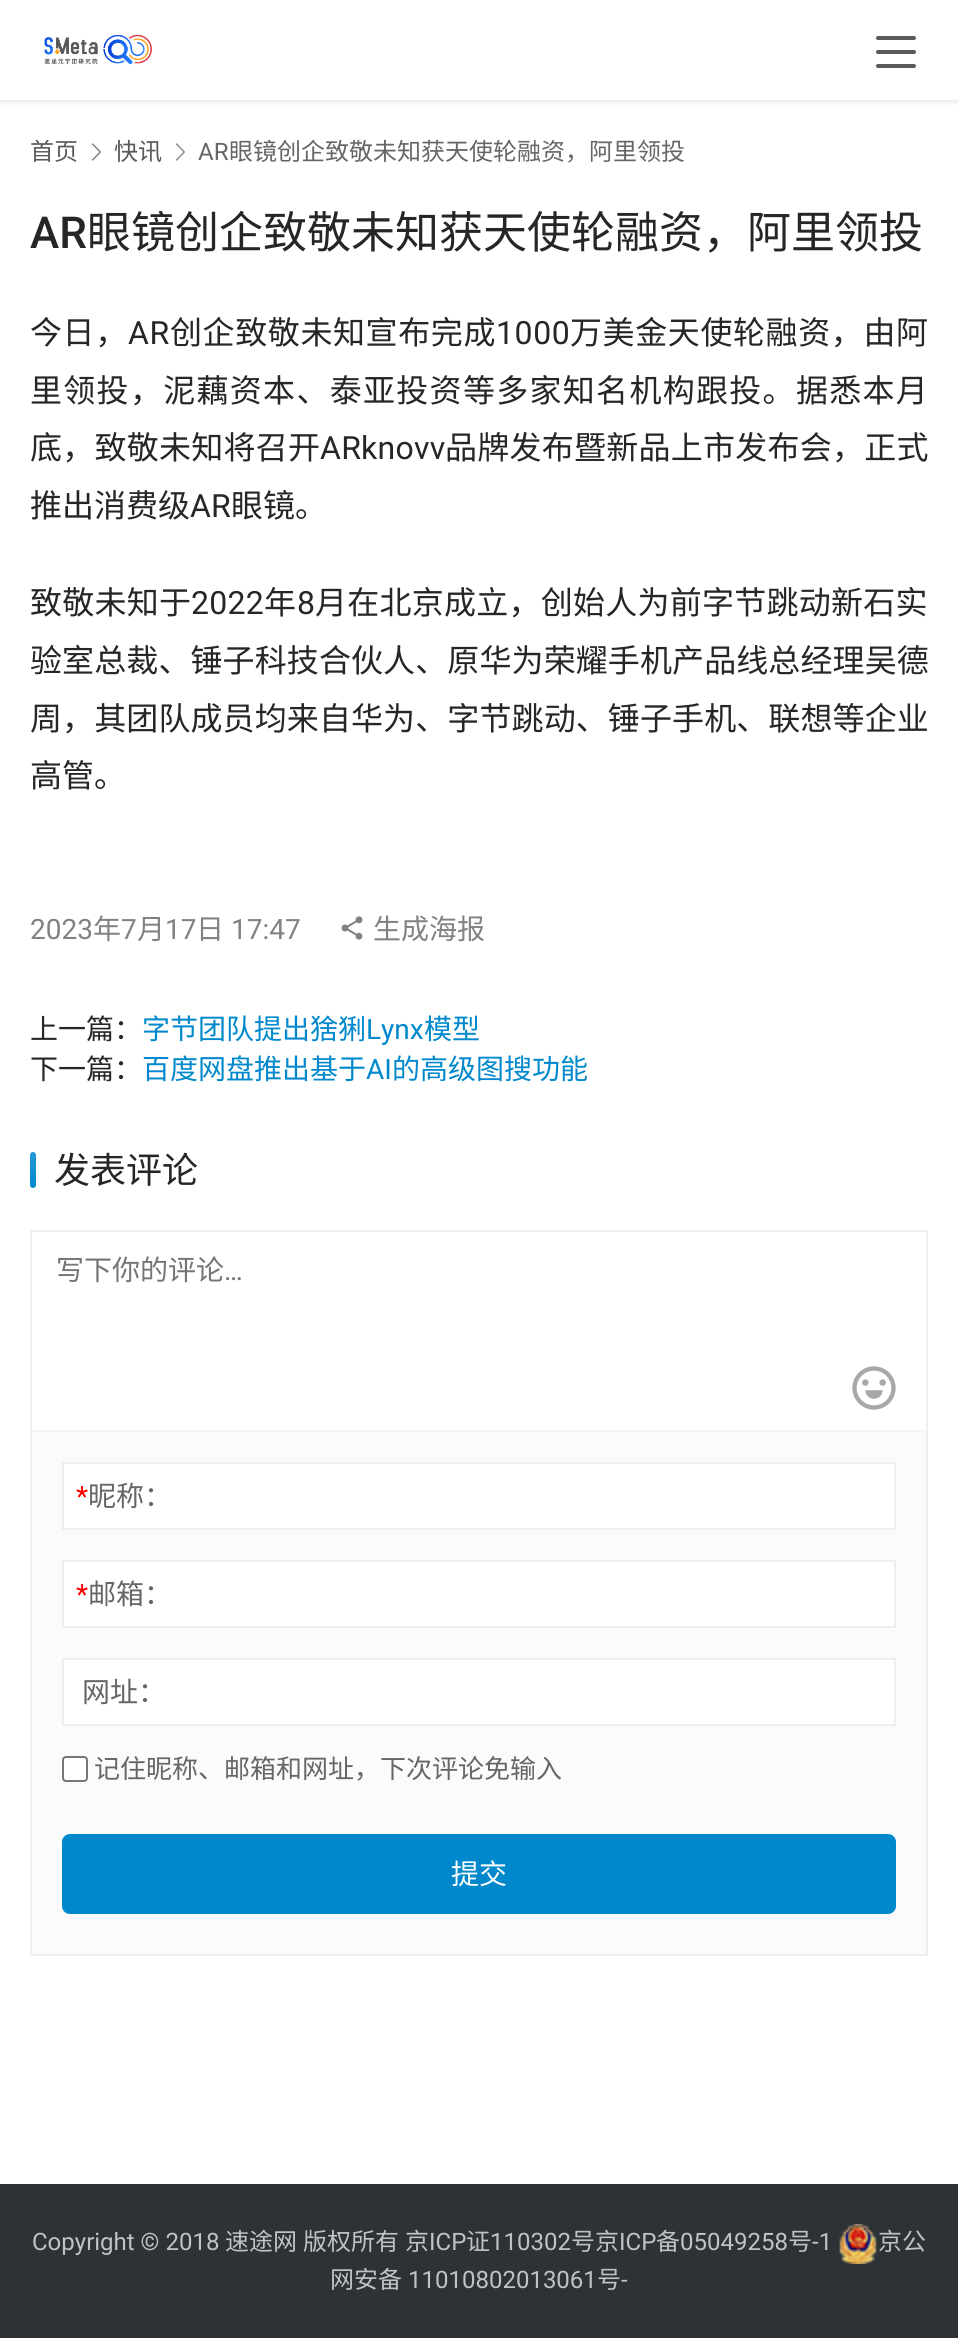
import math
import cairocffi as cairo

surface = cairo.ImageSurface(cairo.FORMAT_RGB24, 958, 2338)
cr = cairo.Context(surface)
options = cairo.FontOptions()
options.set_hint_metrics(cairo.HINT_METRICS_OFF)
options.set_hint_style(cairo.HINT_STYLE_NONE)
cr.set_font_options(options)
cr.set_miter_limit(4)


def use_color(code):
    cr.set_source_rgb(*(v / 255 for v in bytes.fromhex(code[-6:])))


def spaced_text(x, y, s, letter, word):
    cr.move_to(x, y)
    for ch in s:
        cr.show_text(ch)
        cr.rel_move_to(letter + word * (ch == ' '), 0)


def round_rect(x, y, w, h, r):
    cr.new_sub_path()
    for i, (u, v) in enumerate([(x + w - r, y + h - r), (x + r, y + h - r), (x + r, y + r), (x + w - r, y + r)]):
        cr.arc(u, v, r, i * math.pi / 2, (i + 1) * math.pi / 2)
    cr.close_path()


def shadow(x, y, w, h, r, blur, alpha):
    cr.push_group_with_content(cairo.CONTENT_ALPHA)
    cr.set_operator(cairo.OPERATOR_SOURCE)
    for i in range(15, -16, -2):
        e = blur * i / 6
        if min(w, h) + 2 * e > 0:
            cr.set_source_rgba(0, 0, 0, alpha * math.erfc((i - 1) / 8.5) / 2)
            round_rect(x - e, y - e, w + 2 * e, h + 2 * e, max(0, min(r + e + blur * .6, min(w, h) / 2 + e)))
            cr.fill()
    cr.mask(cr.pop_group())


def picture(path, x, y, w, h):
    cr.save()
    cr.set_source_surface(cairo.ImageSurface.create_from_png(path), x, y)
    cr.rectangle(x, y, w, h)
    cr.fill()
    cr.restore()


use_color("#ffffff")
cr.paint()
cr.save()
cr.rectangle(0, 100, 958, 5)
cr.clip()
use_color("#000000")
shadow(-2, -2, 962, 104, 0, 3, 0.1)
cr.restore()
picture("img1.png", 44, 34, 108, 31)
use_color("#5a5a5a")
round_rect(876, 36, 40, 4, 2)
cr.fill()
round_rect(876, 50, 40, 4, 2)
cr.fill()
round_rect(876, 64, 40, 4, 2)
cr.fill()
cr.select_font_face("Noto Sans CJK SC")
cr.set_font_size(24)
cr.move_to(30, 160)
cr.show_text("首页")
picture("img2.png", 91, 143, 10, 18)
cr.move_to(114, 160)
cr.show_text("快讯")
picture("img3.png", 175, 143, 10, 18)
cr.select_font_face("Roboto")
use_color("#666666")
cr.move_to(198, 160)
cr.show_text("AR")
cr.select_font_face("Noto Sans CJK SC")
cr.move_to(229, 160)
cr.show_text("眼镜创企致敬未知获天使轮融资，阿里领投")
cr.select_font_face("Roboto Medium")
cr.set_font_size(44)
use_color("#262626")
cr.move_to(30, 248)
cr.show_text("AR")
cr.select_font_face("Noto Sans CJK SC")
cr.move_to(87, 248)
cr.show_text("眼镜创企致敬未知获天使轮融资，阿里领投")
cr.set_font_size(32)
spaced_text(30, 344, "今日，", 0.6, 0)
cr.select_font_face("Roboto")
spaced_text(128, 344, "AR", 0.6, 0)
cr.select_font_face("Noto Sans CJK SC")
spaced_text(170, 344, "创企致敬未知宣布完成", 0.6, 0)
cr.select_font_face("Roboto")
spaced_text(496, 344, "1000", 0.6, 0)
cr.select_font_face("Noto Sans CJK SC")
spaced_text(570, 344, "万美金天使轮融资，由阿", 0.6, 0)
spaced_text(30, 402, "里领投，泥藕资本、泰亚投资等多家知名机构跟投。据悉本月", 1.3, 0)
spaced_text(30, 459, "底，致敬未知将召开", 0.25, 0)
cr.select_font_face("Roboto")
spaced_text(320, 459, "ARknovv", 0.25, 0)
cr.select_font_face("Noto Sans CJK SC")
spaced_text(445, 459, "品牌发布暨新品上市发布会，正式", 0.25, 0)
cr.move_to(30, 517)
cr.show_text("推出消费级")
cr.select_font_face("Roboto")
cr.move_to(190, 517)
cr.show_text("AR")
cr.select_font_face("Noto Sans CJK SC")
cr.move_to(231, 517)
cr.show_text("眼镜。")
spaced_text(30, 614, "致敬未知于", 0.25, 0)
cr.select_font_face("Roboto")
spaced_text(191, 614, "2022", 0.25, 0)
cr.select_font_face("Noto Sans CJK SC")
spaced_text(264, 614, "年", 0.25, 0)
cr.select_font_face("Roboto")
spaced_text(297, 614, "8", 0.25, 0)
cr.select_font_face("Noto Sans CJK SC")
spaced_text(315, 614, "月在北京成立，创始人为前字节跳动新石实", 0.25, 0)
spaced_text(30, 672, "验室总裁、锤子科技合伙人、原华为荣耀手机产品线总经理吴德", 0.1, 0)
spaced_text(30, 730, "周，其团队成员均来自华为、字节跳动、锤子手机、联想等企业", 0.1, 0)
cr.move_to(30, 787)
cr.show_text("高管。")
cr.select_font_face("Roboto")
cr.set_font_size(28)
use_color("#828282")
cr.move_to(30, 939)
cr.show_text("2023")
cr.select_font_face("Noto Sans CJK SC")
cr.move_to(93, 939)
cr.show_text("年")
cr.select_font_face("Roboto")
cr.move_to(121, 939)
cr.show_text("7")
cr.select_font_face("Noto Sans CJK SC")
cr.move_to(137, 939)
cr.show_text("月")
cr.select_font_face("Roboto")
cr.move_to(165, 939)
cr.show_text("17")
cr.select_font_face("Noto Sans CJK SC")
cr.move_to(196, 939)
cr.show_text("日")
cr.select_font_face("Roboto")
cr.move_to(231, 939)
cr.show_text("17:47")
picture("img4.png", 341, 916, 22, 24)
cr.select_font_face("Noto Sans CJK SC")
cr.move_to(373, 939)
cr.show_text("生成海报")
use_color("#262626")
cr.move_to(30, 1039)
cr.show_text("上一篇：")
use_color("#0088cc")
cr.move_to(142, 1039)
cr.show_text("字节团队提出猞猁")
cr.select_font_face("Roboto")
cr.move_to(366, 1039)
cr.show_text("Lynx")
cr.select_font_face("Noto Sans CJK SC")
cr.move_to(424, 1039)
cr.show_text("模型")
use_color("#262626")
cr.move_to(30, 1079)
cr.show_text("下一篇：")
use_color("#0088cc")
cr.move_to(142, 1079)
cr.show_text("百度网盘推出基于")
cr.select_font_face("Roboto")
cr.move_to(366, 1079)
cr.show_text("AI")
cr.select_font_face("Noto Sans CJK SC")
cr.move_to(392, 1079)
cr.show_text("的高级图搜功能")
round_rect(30, 1152, 6, 36, 3)
cr.fill()
gradient = cairo.LinearGradient(33, 1152, 33, 1188)
gradient.add_color_stop_rgba(0, 1, 1, 1, 0.15)
gradient.add_color_stop_rgba(1, 1, 1, 1, 0)
cr.set_source(gradient)
round_rect(30, 1152, 6, 36, 3)
cr.fill()
cr.set_font_size(36)
use_color("#262626")
cr.move_to(54, 1183)
cr.show_text("发表评论")
use_color("#fbfbfb")
cr.rectangle(32, 1432, 894, 522)
cr.fill()
cr.rectangle(31, 1231, 896, 724)
use_color("#efefef")
cr.stroke()
use_color("#f5f5f5")
cr.rectangle(32, 1430, 894, 2)
cr.fill()
cr.set_font_size(28)
use_color("#757575")
cr.move_to(56, 1280)
cr.show_text("写下你的评论")
cr.select_font_face("Roboto")
cr.move_to(224, 1280)
cr.show_text("…")
picture("img5.png", 852, 1366, 44, 44)
use_color("#ffffff")
cr.rectangle(63, 1463, 832, 66)
cr.fill_preserve()
use_color("#efefef")
cr.stroke()
use_color("#ff0000")
cr.move_to(76, 1506)
cr.show_text("*")
cr.select_font_face("Noto Sans CJK SC")
use_color("#666666")
cr.move_to(88, 1506)
cr.show_text("昵称：")
use_color("#ffffff")
cr.rectangle(63, 1561, 832, 66)
cr.fill_preserve()
use_color("#efefef")
cr.stroke()
cr.select_font_face("Roboto")
use_color("#ff0000")
cr.move_to(76, 1604)
cr.show_text("*")
cr.select_font_face("Noto Sans CJK SC")
use_color("#666666")
cr.move_to(88, 1604)
cr.show_text("邮箱：")
use_color("#ffffff")
cr.rectangle(63, 1659, 832, 66)
cr.fill_preserve()
use_color("#efefef")
cr.stroke()
use_color("#666666")
cr.move_to(82, 1702)
cr.show_text("网址：")
use_color("#ffffff")
round_rect(63, 1757, 24, 24, 3)
cr.fill_preserve()
use_color("#767676")
cr.stroke()
cr.set_font_size(26)
use_color("#666666")
cr.move_to(94, 1778)
cr.show_text("记住昵称、邮箱和网址，下次评论免输入")
use_color("#0088cc")
round_rect(63, 1835, 832, 78, 7)
cr.fill_preserve()
cr.stroke()
cr.set_font_size(28)
use_color("#ffffff")
cr.move_to(451, 1884)
cr.show_text("提交")
use_color("#2d3236")
cr.rectangle(0, 2184, 958, 154)
cr.fill()
cr.select_font_face("Roboto")
cr.set_font_size(24)
use_color("#c0c2c3")
cr.move_to(32, 2250)
cr.show_text("Copyright © 2018")
cr.select_font_face("Noto Sans CJK SC")
cr.move_to(225, 2250)
cr.show_text("速途网")
cr.move_to(303, 2250)
cr.show_text("版权所有")
cr.move_to(405, 2250)
cr.show_text("京")
cr.select_font_face("Roboto")
cr.move_to(429, 2250)
cr.show_text("ICP")
cr.select_font_face("Noto Sans CJK SC")
cr.move_to(466, 2250)
cr.show_text("证")
cr.select_font_face("Roboto")
cr.move_to(490, 2250)
cr.show_text("110302")
cr.select_font_face("Noto Sans CJK SC")
cr.move_to(571, 2250)
cr.show_text("号京")
cr.select_font_face("Roboto")
cr.move_to(619, 2250)
cr.show_text("ICP")
cr.select_font_face("Noto Sans CJK SC")
cr.move_to(656, 2250)
cr.show_text("备")
cr.select_font_face("Roboto")
cr.move_to(680, 2250)
cr.show_text("05049258")
cr.select_font_face("Noto Sans CJK SC")
cr.move_to(788, 2250)
cr.show_text("号")
cr.select_font_face("Roboto")
cr.move_to(812, 2250)
cr.show_text("-1")
picture("img6.png", 839, 2224, 38, 40)
cr.select_font_face("Noto Sans CJK SC")
cr.move_to(878, 2250)
cr.show_text("京公")
cr.move_to(330, 2288)
cr.show_text("网安备")
cr.select_font_face("Roboto")
cr.move_to(408, 2288)
cr.show_text("11010802013061")
cr.select_font_face("Noto Sans CJK SC")
cr.move_to(597, 2288)
cr.show_text("号")
cr.select_font_face("Roboto")
cr.move_to(621, 2288)
cr.show_text("-")
surface.write_to_png("result.png")
